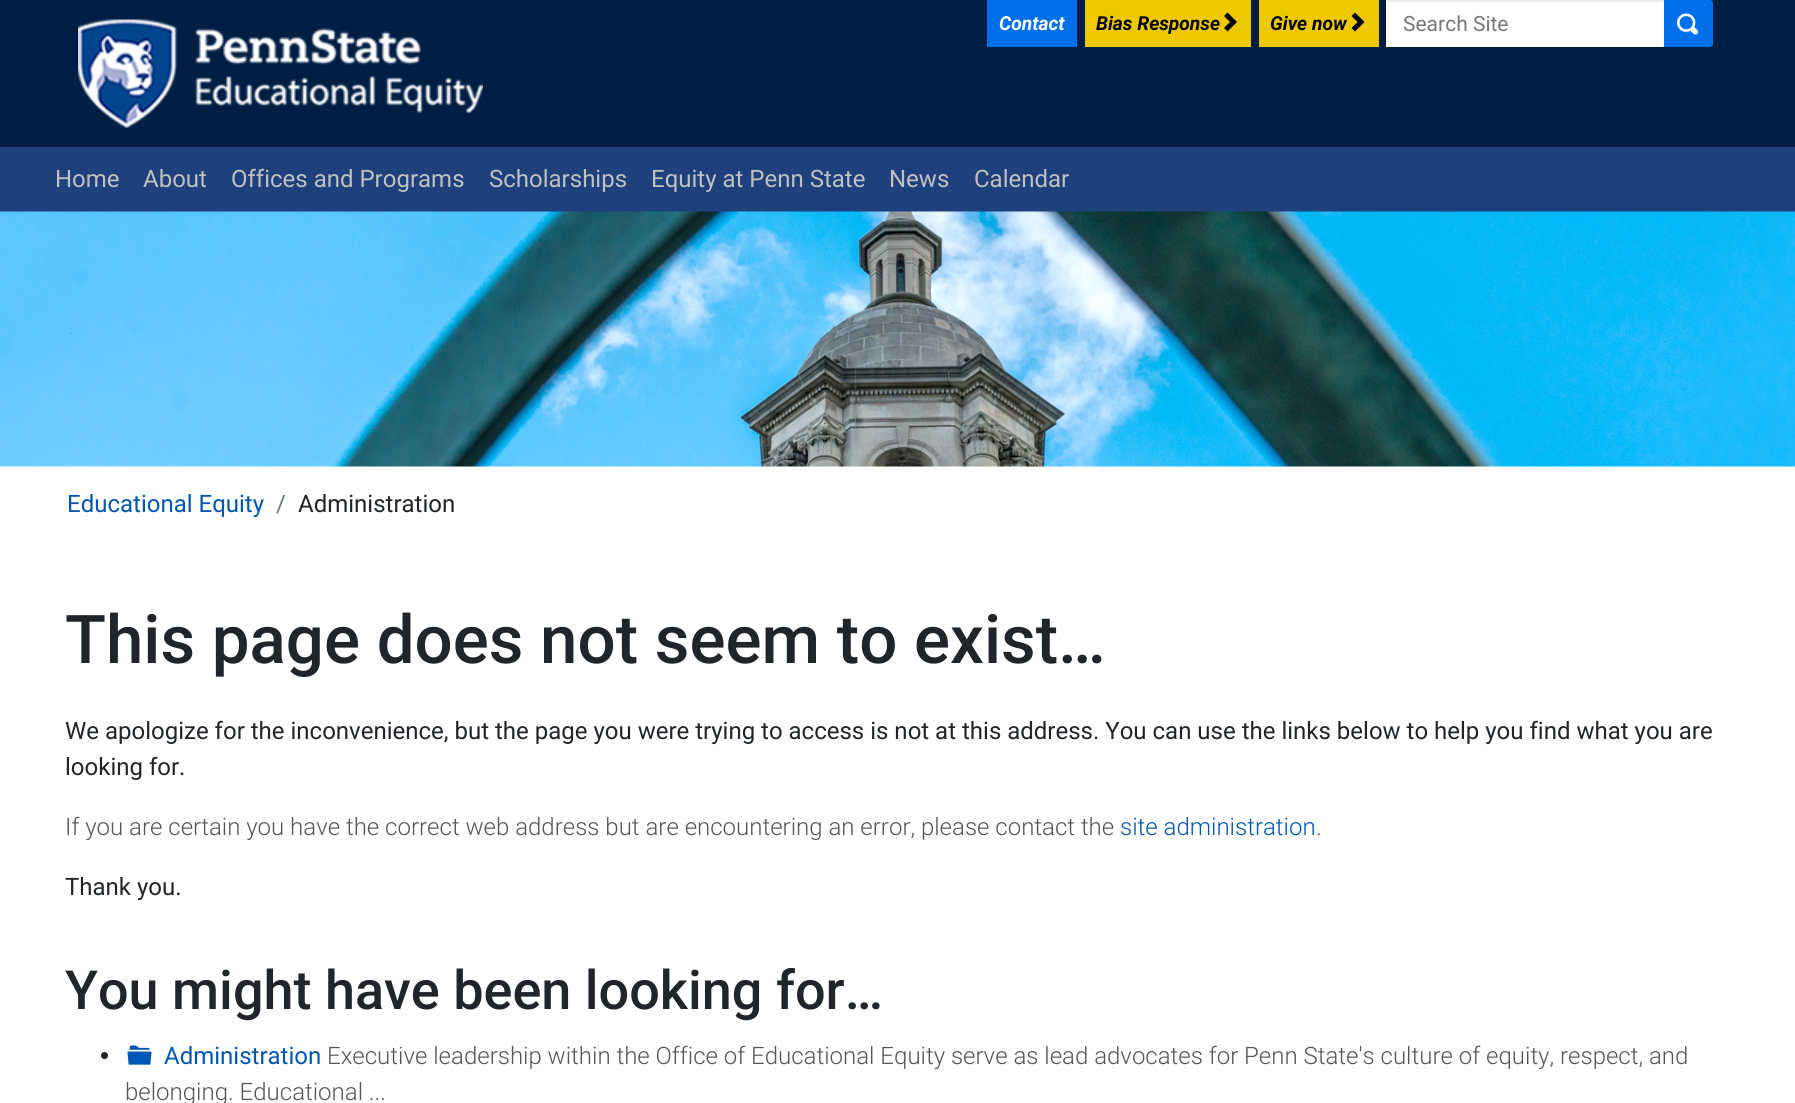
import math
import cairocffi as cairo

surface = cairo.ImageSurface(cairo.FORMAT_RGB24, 1795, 1103)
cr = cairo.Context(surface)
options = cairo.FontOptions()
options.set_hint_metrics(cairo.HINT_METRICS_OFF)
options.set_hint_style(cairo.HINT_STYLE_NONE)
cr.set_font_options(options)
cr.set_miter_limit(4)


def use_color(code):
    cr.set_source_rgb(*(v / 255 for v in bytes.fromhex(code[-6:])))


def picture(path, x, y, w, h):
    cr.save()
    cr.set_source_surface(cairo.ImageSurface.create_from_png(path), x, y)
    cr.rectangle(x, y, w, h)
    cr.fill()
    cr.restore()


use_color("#ffffff")
cr.paint()
use_color("#001e44")
cr.rectangle(0, 0, 1795, 147)
cr.fill()
picture("img1.png", 78, 19, 405, 109)
use_color("#0070ea")
cr.rectangle(987, 0, 90, 47)
cr.fill()
cr.select_font_face("Roboto", cairo.FONT_SLANT_ITALIC, cairo.FONT_WEIGHT_BOLD)
cr.set_font_size(19.25)
use_color("#ffffff")
cr.move_to(999, 30)
cr.show_text("Contact")
use_color("#efc900")
cr.rectangle(1085, 0, 166, 47)
cr.fill()
use_color("#000000")
cr.move_to(1096, 30)
cr.show_text("Bias Response")
cr.new_path()
cr.move_to(1227.5, 12.5)
cr.line_to(1237, 22)
cr.line_to(1227.5, 31.5)
cr.line_to(1224, 28)
cr.line_to(1230, 22)
cr.line_to(1224, 16)
cr.close_path()
cr.fill()
use_color("#efc900")
cr.rectangle(1259, 0, 120, 47)
cr.fill()
use_color("#000000")
cr.move_to(1270, 30)
cr.show_text("Give now")
cr.new_path()
cr.move_to(1355, 12.5)
cr.line_to(1364.5, 22)
cr.line_to(1355, 31.5)
cr.line_to(1351.5, 28)
cr.line_to(1357.5, 22)
cr.line_to(1351.5, 16)
cr.close_path()
cr.fill()
use_color("#ffffff")
cr.rectangle(1386, 2, 278, 45)
cr.fill()
use_color("#ececec")
cr.rectangle(1386, 0, 279, 2)
cr.fill()
cr.select_font_face("Roboto")
cr.set_font_size(21)
use_color("#777777")
cr.move_to(1403, 31)
cr.show_text("Search Site")
use_color("#0070ea")
cr.new_path()
cr.move_to(1665, 1)
cr.line_to(1710, 1)
cr.curve_to(1711, 1, 1712, 2, 1712, 3)
cr.line_to(1712, 44)
cr.curve_to(1712, 45, 1711, 46, 1710, 46)
cr.line_to(1665, 46)
cr.close_path()
cr.fill_preserve()
cr.stroke()
picture("img2.png", 1677, 13, 21, 22)
use_color("#1e407c")
cr.rectangle(0, 147, 1795, 65)
cr.fill()
cr.set_font_size(24)
use_color("#c0c0c0")
cr.move_to(55, 187)
cr.show_text("Home")
cr.move_to(143, 187)
cr.show_text("About")
cr.move_to(231, 187)
cr.show_text("Offices and Programs")
cr.move_to(489, 187)
cr.show_text("Scholarships")
cr.move_to(651, 187)
cr.show_text("Equity at Penn State")
cr.move_to(889, 187)
cr.show_text("News")
cr.move_to(974, 187)
cr.show_text("Calendar")
picture("img3.png", 0, 211, 1795, 256)
use_color("#0056b3")
cr.move_to(67, 512)
cr.show_text("Educational Equity")
use_color("#6c757d")
cr.move_to(276, 512)
cr.show_text("/")
use_color("#212529")
cr.move_to(298, 512)
cr.show_text("Administration")
cr.select_font_face("Roboto Medium")
cr.set_font_size(67.25)
cr.move_to(65, 663)
cr.show_text("This page does not seem to exist…")
cr.select_font_face("Roboto")
cr.set_font_size(24)
cr.move_to(65, 739)
cr.show_text("We apologize for the inconvenience, but the page you were trying to access is not at this address. You can use the links below to help you find what you are")
cr.move_to(65, 775)
cr.show_text("looking for.")
cr.select_font_face("Roboto Light")
use_color("#555555")
cr.move_to(65, 835)
cr.show_text("If you are certain you have the correct web address but are encountering an error, please contact the")
use_color("#0056b3")
cr.move_to(1120, 835)
cr.show_text("site administration")
use_color("#555555")
cr.move_to(1316, 835)
cr.show_text(".")
cr.select_font_face("Roboto")
use_color("#212529")
cr.move_to(65, 895)
cr.show_text("Thank you.")
cr.select_font_face("Roboto Medium")
cr.set_font_size(54)
cr.move_to(65, 1009)
cr.show_text("You might have been looking for…")
cr.new_path()
cr.arc(104.5, 1055.5, 3.5, 0, 2 * math.pi)
cr.fill()
picture("img4.png", 127, 1045, 25, 20)
cr.select_font_face("Roboto")
cr.set_font_size(24)
use_color("#0056b3")
cr.move_to(164, 1064)
cr.show_text("Administration")
cr.select_font_face("Roboto Light")
use_color("#555555")
cr.move_to(327, 1064)
cr.show_text("Executive leadership within the Office of Educational Equity serve as lead advocates for Penn State's culture of equity, respect, and")
cr.move_to(125, 1100)
cr.show_text("belonging. Educational ...")
surface.write_to_png("result.png")
